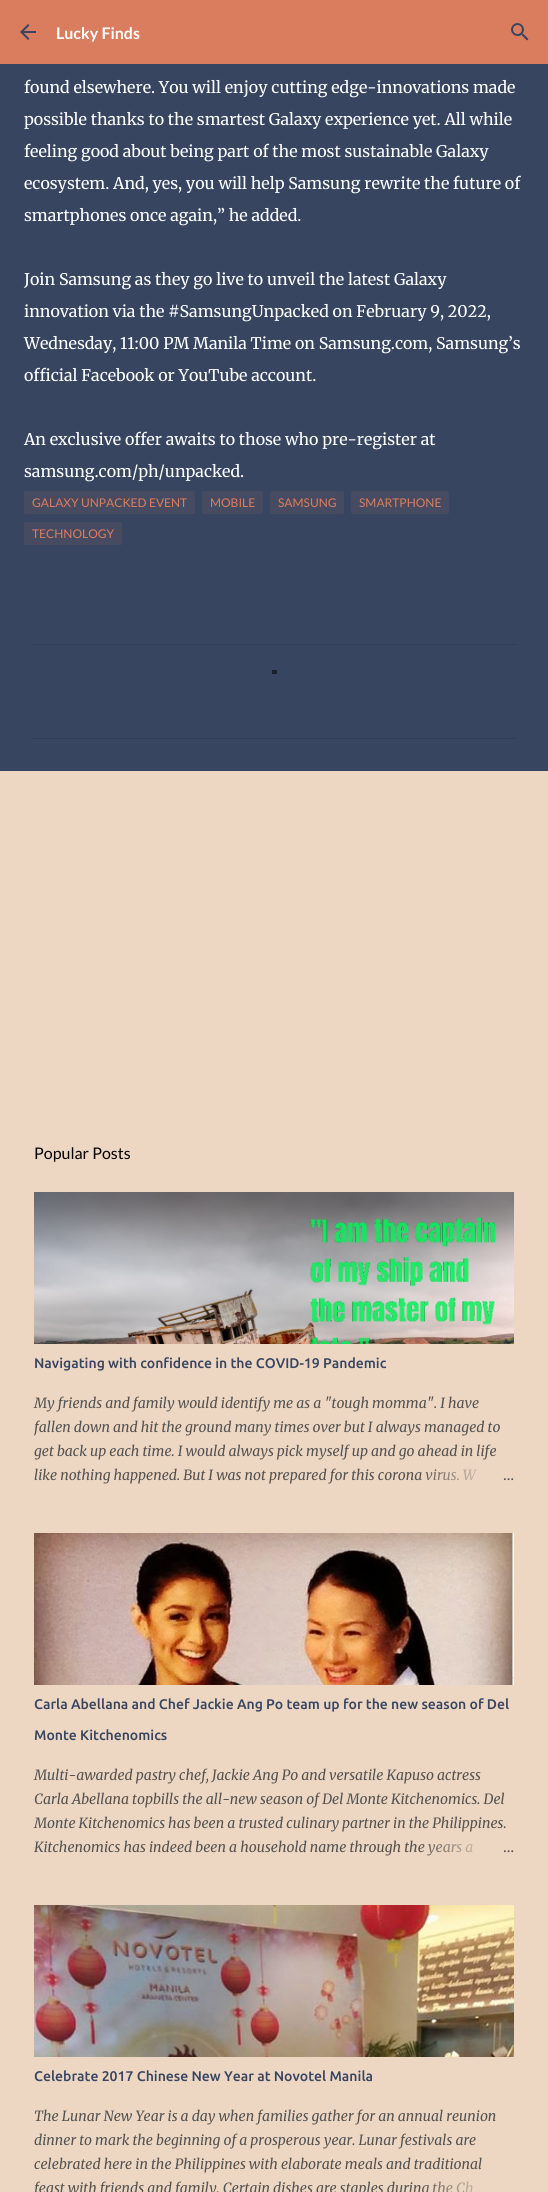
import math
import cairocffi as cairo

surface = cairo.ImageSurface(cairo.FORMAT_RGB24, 548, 2192)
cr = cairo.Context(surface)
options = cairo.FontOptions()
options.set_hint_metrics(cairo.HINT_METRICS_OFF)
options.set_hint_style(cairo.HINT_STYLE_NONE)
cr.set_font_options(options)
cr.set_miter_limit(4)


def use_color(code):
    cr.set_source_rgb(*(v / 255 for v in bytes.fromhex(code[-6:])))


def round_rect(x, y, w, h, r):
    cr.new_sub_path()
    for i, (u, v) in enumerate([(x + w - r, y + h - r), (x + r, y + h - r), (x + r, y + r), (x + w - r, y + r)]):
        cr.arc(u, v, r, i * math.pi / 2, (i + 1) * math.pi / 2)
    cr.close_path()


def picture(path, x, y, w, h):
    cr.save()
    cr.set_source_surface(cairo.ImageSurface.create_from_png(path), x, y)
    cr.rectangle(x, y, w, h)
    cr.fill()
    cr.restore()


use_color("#eed7c2")
cr.paint()
use_color("#da7d5e")
cr.rectangle(0, 0, 548, 64)
cr.fill()
picture("img1.png", 20, 24, 16, 16)
cr.select_font_face("Lato", cairo.FONT_SLANT_NORMAL, cairo.FONT_WEIGHT_BOLD)
cr.set_font_size(16)
use_color("#ffffff")
cr.move_to(56, 39)
cr.show_text("Lucky Finds")
picture("img2.png", 511, 23, 18, 18)
use_color("#374561")
cr.rectangle(0, 64, 548, 707)
cr.fill()
cr.select_font_face("Merriweather Light")
use_color("#ffffff")
cr.move_to(24, 93)
cr.show_text("found elsewhere. You will enjoy cutting edge-innovations made")
cr.move_to(24, 125)
cr.show_text("possible thanks to the smartest Galaxy experience yet. All while")
cr.move_to(24, 157)
cr.show_text("feeling good about being part of the most sustainable Galaxy")
cr.move_to(24, 189)
cr.show_text("ecosystem. And, yes, you will help Samsung rewrite the future of")
cr.move_to(24, 221)
cr.show_text("smartphones once again,” he added.")
cr.move_to(24, 285)
cr.show_text("Join Samsung as they go live to unveil the latest Galaxy")
cr.move_to(24, 317)
cr.show_text("innovation via the #SamsungUnpacked on February 9, 2022,")
cr.move_to(24, 349)
cr.show_text("Wednesday, 11:00 PM Manila Time on Samsung.com, Samsung’s")
cr.move_to(24, 381)
cr.show_text("official Facebook or YouTube account.")
cr.move_to(24, 445)
cr.show_text("An exclusive offer awaits to those who pre-register at")
cr.move_to(24, 477)
cr.show_text("samsung.com/ph/unpacked.")
use_color("#474b61")
round_rect(24, 491, 171, 23, 2)
cr.fill()
cr.select_font_face("Lato")
cr.set_font_size(12)
use_color("#da7d5e")
cr.move_to(32, 507)
cr.show_text("GALAXY UNPACKED EVENT")
use_color("#474b61")
round_rect(202, 491, 61, 23, 2)
cr.fill()
use_color("#da7d5e")
cr.move_to(210, 507)
cr.show_text("MOBILE")
use_color("#474b61")
round_rect(270, 491, 74, 23, 2)
cr.fill()
use_color("#da7d5e")
cr.move_to(278, 507)
cr.show_text("SAMSUNG")
use_color("#474b61")
round_rect(351, 491, 98, 23, 2)
cr.fill()
use_color("#da7d5e")
cr.move_to(359, 507)
cr.show_text("SMARTPHONE")
use_color("#474b61")
round_rect(24, 522, 98, 23, 2)
cr.fill()
use_color("#da7d5e")
cr.move_to(32, 538)
cr.show_text("TECHNOLOGY")
use_color("#303d55")
cr.rectangle(32, 644, 484, 1)
cr.fill()
cr.rectangle(32, 738, 484, 1)
cr.fill()
cr.set_font_size(16)
use_color("#000000")
cr.move_to(34, 1159)
cr.show_text("Popular Posts")
picture("img3.png", 34, 1192, 480, 152)
cr.select_font_face("Ubuntu Medium")
cr.set_font_size(14)
use_color("#374561")
cr.move_to(34, 1368)
cr.show_text("Navigating with confidence in the COVID-19 Pandemic")
cr.select_font_face("Merriweather", cairo.FONT_SLANT_ITALIC)
use_color("#535353")
cr.move_to(34, 1408)
cr.show_text("My friends and family would identify me as a \"tough momma\". I have")
cr.save()
cr.rectangle(34, 1391, 480, 96)
cr.clip()
cr.move_to(34, 1432)
cr.show_text("fallen down and hit the ground many times over but I always managed to")
cr.restore()
cr.move_to(34, 1456)
cr.show_text("get back up each time. I would always pick myself up and go ahead in life")
cr.move_to(34, 1480)
cr.show_text("like nothing happened. But I was not prepared for this corona virus. W")
gradient = cairo.LinearGradient(514, 1475, 418, 1475)
gradient.add_color_stop_rgba(0, 0.933, 0.843, 0.761, 1)
gradient.add_color_stop_rgba(0.2, 0.933, 0.843, 0.761, 1)
gradient.add_color_stop_rgba(1, 0.933, 0.843, 0.761, 0)
cr.set_source(gradient)
cr.rectangle(420, 1469, 57, 12)
cr.fill()
cr.select_font_face("Merriweather Light")
use_color("#535353")
cr.move_to(503, 1480)
cr.show_text("…")
picture("img4.png", 34, 1533, 480, 152)
cr.select_font_face("Ubuntu Medium")
use_color("#374561")
cr.move_to(34, 1709)
cr.show_text("Carla Abellana and Chef Jackie Ang Po team up for the new season of Del")
cr.move_to(34, 1740)
cr.show_text("Monte Kitchenomics")
cr.select_font_face("Merriweather", cairo.FONT_SLANT_ITALIC)
use_color("#535353")
cr.move_to(34, 1780)
cr.show_text("Multi-awarded pastry chef, Jackie Ang Po and versatile Kapuso actress")
cr.move_to(34, 1804)
cr.show_text("Carla Abellana topbills the all-new season of Del Monte Kitchenomics. Del")
cr.move_to(34, 1828)
cr.show_text("Monte Kitchenomics has been a trusted culinary partner in the Philippines.")
cr.move_to(34, 1852)
cr.show_text("Kitchenomics has indeed been a household name through the years a")
gradient = cairo.LinearGradient(514, 1847, 418, 1847)
gradient.add_color_stop_rgba(0, 0.933, 0.843, 0.761, 1)
gradient.add_color_stop_rgba(0.2, 0.933, 0.843, 0.761, 1)
gradient.add_color_stop_rgba(1, 0.933, 0.843, 0.761, 0)
cr.set_source(gradient)
cr.rectangle(420, 1844, 53, 12)
cr.fill()
cr.select_font_face("Merriweather Light")
use_color("#535353")
cr.move_to(503, 1852)
cr.show_text("…")
picture("img5.png", 34, 1905, 480, 152)
cr.select_font_face("Ubuntu Medium")
use_color("#374561")
cr.move_to(34, 2081)
cr.show_text("Celebrate 2017 Chinese New Year at Novotel Manila")
cr.select_font_face("Merriweather", cairo.FONT_SLANT_ITALIC)
use_color("#535353")
cr.move_to(34, 2121)
cr.show_text("The Lunar New Year is a day when families gather for an annual reunion")
cr.move_to(34, 2145)
cr.show_text("dinner to mark the beginning of a prosperous year. Lunar festivals are")
cr.move_to(34, 2169)
cr.show_text("celebrated here in the Philippines with elaborate meals and traditional")
cr.move_to(34, 2193)
cr.show_text("feast with friends and family. Certain dishes are staples during the Ch")
gradient = cairo.LinearGradient(514, 2188, 418, 2188)
gradient.add_color_stop_rgba(0, 0.933, 0.843, 0.761, 1)
gradient.add_color_stop_rgba(0.2, 0.933, 0.843, 0.761, 1)
gradient.add_color_stop_rgba(1, 0.933, 0.843, 0.761, 0)
cr.set_source(gradient)
cr.rectangle(422, 2181, 51, 11)
cr.fill()
use_color("#19202d")
cr.rectangle(272, 670, 5, 4)
cr.fill()
surface.write_to_png("result.png")
